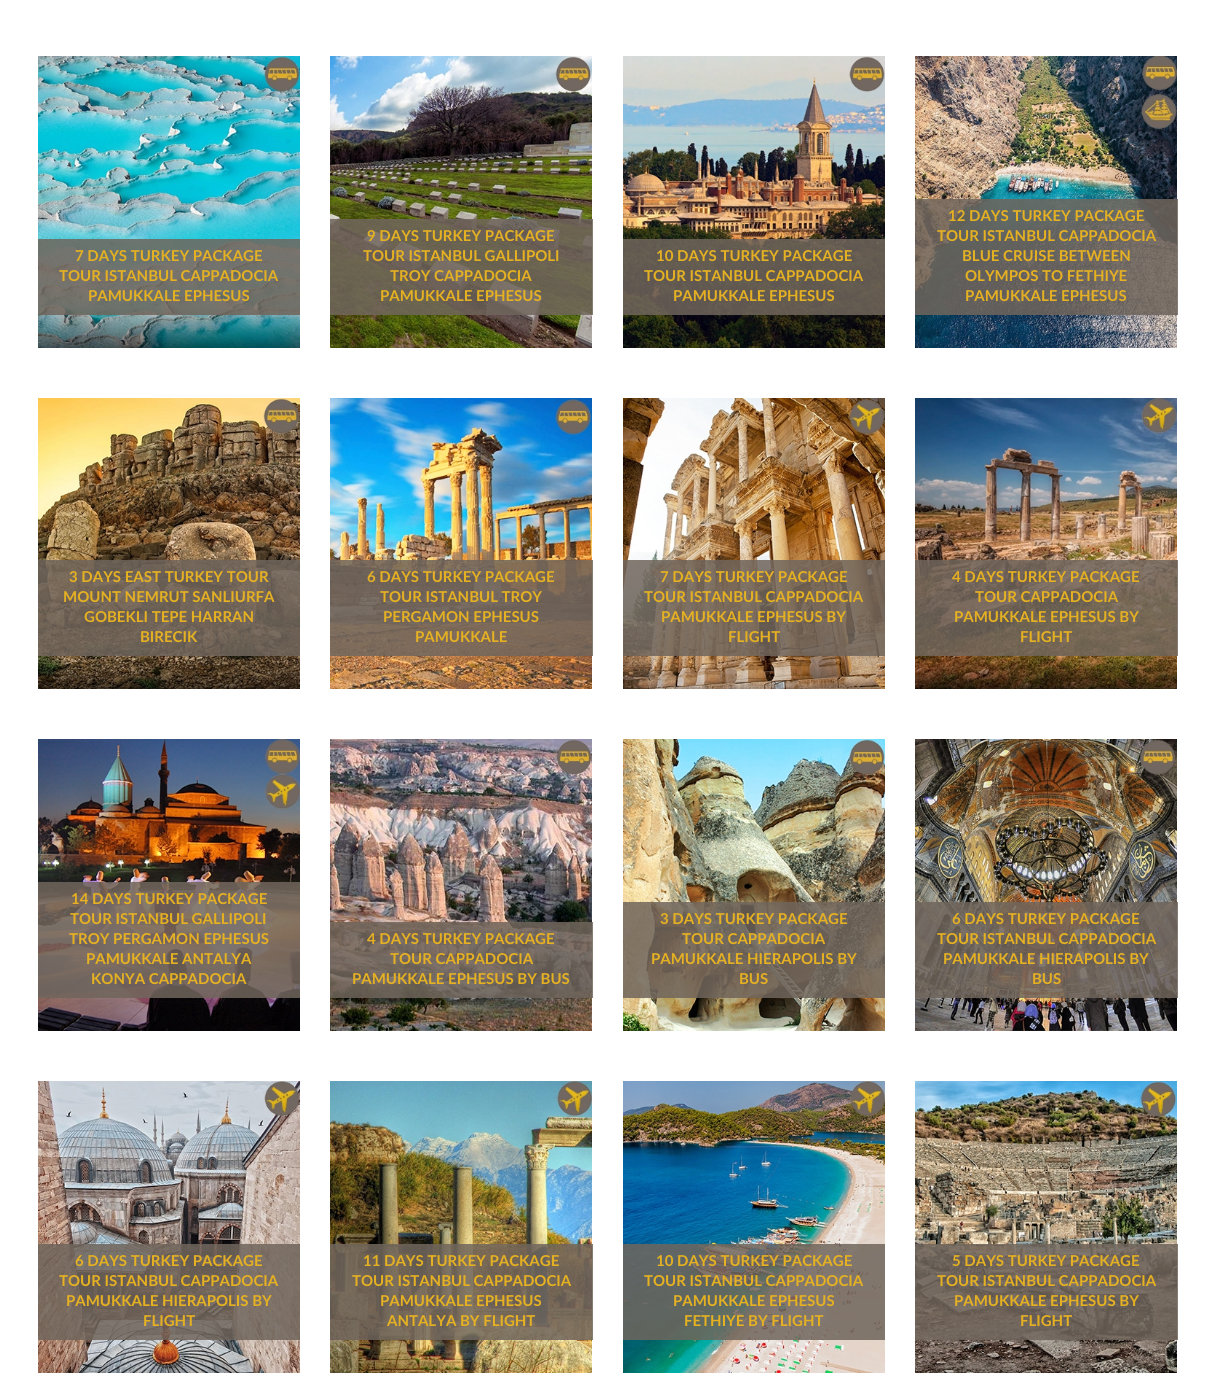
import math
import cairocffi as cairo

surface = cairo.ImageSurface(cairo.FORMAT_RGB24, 1215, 1384)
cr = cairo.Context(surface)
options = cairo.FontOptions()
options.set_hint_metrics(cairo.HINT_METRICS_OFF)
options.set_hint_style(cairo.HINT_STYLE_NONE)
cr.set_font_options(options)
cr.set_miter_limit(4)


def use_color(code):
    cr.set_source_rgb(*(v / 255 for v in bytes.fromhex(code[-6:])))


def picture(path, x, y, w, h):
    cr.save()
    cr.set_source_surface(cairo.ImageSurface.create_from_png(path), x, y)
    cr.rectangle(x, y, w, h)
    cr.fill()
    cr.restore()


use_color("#ffffff")
cr.paint()
picture("img1.png", 38, 56, 262, 292)
cr.set_source_rgba(0.439, 0.396, 0.361, 0.85)
cr.rectangle(38, 239, 262, 76)
cr.fill()
cr.select_font_face("lato", cairo.FONT_SLANT_NORMAL, cairo.FONT_WEIGHT_BOLD)
cr.set_font_size(15)
use_color("#e5b123")
cr.move_to(75, 261)
cr.show_text("7 DAYS TURKEY PACKAGE")
cr.move_to(59, 281)
cr.show_text("TOUR ISTANBUL CAPPADOCIA")
cr.move_to(88, 301)
cr.show_text("PAMUKKALE EPHESUS")
picture("img2.png", 330, 56, 262, 292)
cr.set_source_rgba(0.439, 0.396, 0.361, 0.85)
cr.rectangle(330, 219, 263, 96)
cr.fill()
use_color("#e5b123")
cr.move_to(367, 241)
cr.show_text("9 DAYS TURKEY PACKAGE")
cr.move_to(363, 261)
cr.show_text("TOUR ISTANBUL GALLIPOLI")
cr.move_to(390, 281)
cr.show_text("TROY CAPPADOCIA")
cr.move_to(380, 301)
cr.show_text("PAMUKKALE EPHESUS")
picture("img3.png", 623, 56, 262, 292)
cr.set_source_rgba(0.439, 0.396, 0.361, 0.85)
cr.rectangle(623, 239, 262, 76)
cr.fill()
use_color("#e5b123")
cr.move_to(656, 261)
cr.show_text("10 DAYS TURKEY PACKAGE")
cr.move_to(644, 281)
cr.show_text("TOUR ISTANBUL CAPPADOCIA")
cr.move_to(673, 301)
cr.show_text("PAMUKKALE EPHESUS")
picture("img4.png", 915, 56, 262, 292)
cr.set_source_rgba(0.439, 0.396, 0.361, 0.85)
cr.rectangle(915, 199, 263, 116)
cr.fill()
use_color("#e5b123")
cr.move_to(948, 221)
cr.show_text("12 DAYS TURKEY PACKAGE")
cr.move_to(937, 241)
cr.show_text("TOUR ISTANBUL CAPPADOCIA")
cr.move_to(962, 261)
cr.show_text("BLUE CRUISE BETWEEN")
cr.move_to(965, 281)
cr.show_text("OLYMPOS TO FETHIYE")
cr.move_to(965, 301)
cr.show_text("PAMUKKALE EPHESUS")
picture("img5.png", 38, 398, 262, 291)
cr.set_source_rgba(0.439, 0.396, 0.361, 0.85)
cr.rectangle(38, 560, 262, 96)
cr.fill()
use_color("#e5b123")
cr.move_to(69, 582)
cr.show_text("3 DAYS EAST TURKEY TOUR")
cr.move_to(63, 602)
cr.show_text("MOUNT NEMRUT SANLIURFA")
cr.move_to(84, 622)
cr.show_text("GOBEKLI TEPE HARRAN")
cr.move_to(140, 642)
cr.show_text("BIRECIK")
picture("img6.png", 330, 398, 262, 291)
cr.set_source_rgba(0.439, 0.396, 0.361, 0.85)
cr.rectangle(330, 560, 263, 96)
cr.fill()
use_color("#e5b123")
cr.move_to(367, 582)
cr.show_text("6 DAYS TURKEY PACKAGE")
cr.move_to(380, 602)
cr.show_text("TOUR ISTANBUL TROY")
cr.move_to(383, 622)
cr.show_text("PERGAMON EPHESUS")
cr.move_to(415, 642)
cr.show_text("PAMUKKALE")
picture("img7.png", 623, 398, 262, 291)
cr.set_source_rgba(0.439, 0.396, 0.361, 0.85)
cr.rectangle(623, 560, 262, 96)
cr.fill()
use_color("#e5b123")
cr.move_to(660, 582)
cr.show_text("7 DAYS TURKEY PACKAGE")
cr.move_to(644, 602)
cr.show_text("TOUR ISTANBUL CAPPADOCIA")
cr.move_to(661, 622)
cr.show_text("PAMUKKALE EPHESUS BY")
cr.move_to(728, 642)
cr.show_text("FLIGHT")
picture("img8.png", 915, 398, 262, 291)
cr.set_source_rgba(0.439, 0.396, 0.361, 0.85)
cr.rectangle(915, 560, 263, 96)
cr.fill()
use_color("#e5b123")
cr.move_to(952, 582)
cr.show_text("4 DAYS TURKEY PACKAGE")
cr.move_to(975, 602)
cr.show_text("TOUR CAPPADOCIA")
cr.move_to(954, 622)
cr.show_text("PAMUKKALE EPHESUS BY")
cr.move_to(1020, 642)
cr.show_text("FLIGHT")
picture("img9.png", 38, 739, 262, 292)
cr.set_source_rgba(0.439, 0.396, 0.361, 0.85)
cr.rectangle(38, 882, 262, 116)
cr.fill()
use_color("#e5b123")
cr.move_to(71, 904)
cr.show_text("14 DAYS TURKEY PACKAGE")
cr.move_to(70, 924)
cr.show_text("TOUR ISTANBUL GALLIPOLI")
cr.move_to(69, 944)
cr.show_text("TROY PERGAMON EPHESUS")
cr.move_to(86, 964)
cr.show_text("PAMUKKALE ANTALYA")
cr.move_to(91, 984)
cr.show_text("KONYA CAPPADOCIA")
picture("img10.png", 330, 739, 262, 292)
cr.set_source_rgba(0.439, 0.396, 0.361, 0.85)
cr.rectangle(330, 922, 263, 76)
cr.fill()
use_color("#e5b123")
cr.move_to(367, 944)
cr.show_text("4 DAYS TURKEY PACKAGE")
cr.move_to(390, 964)
cr.show_text("TOUR CAPPADOCIA")
cr.move_to(352, 984)
cr.show_text("PAMUKKALE EPHESUS BY BUS")
picture("img11.png", 623, 739, 262, 292)
cr.set_source_rgba(0.439, 0.396, 0.361, 0.85)
cr.rectangle(623, 902, 262, 96)
cr.fill()
use_color("#e5b123")
cr.move_to(660, 924)
cr.show_text("3 DAYS TURKEY PACKAGE")
cr.move_to(682, 944)
cr.show_text("TOUR CAPPADOCIA")
cr.move_to(651, 964)
cr.show_text("PAMUKKALE HIERAPOLIS BY")
cr.move_to(739, 984)
cr.show_text("BUS")
picture("img12.png", 915, 739, 262, 292)
cr.set_source_rgba(0.439, 0.396, 0.361, 0.85)
cr.rectangle(915, 902, 263, 96)
cr.fill()
use_color("#e5b123")
cr.move_to(952, 924)
cr.show_text("6 DAYS TURKEY PACKAGE")
cr.move_to(937, 944)
cr.show_text("TOUR ISTANBUL CAPPADOCIA")
cr.move_to(943, 964)
cr.show_text("PAMUKKALE HIERAPOLIS BY")
cr.move_to(1032, 984)
cr.show_text("BUS")
picture("img13.png", 38, 1081, 262, 292)
cr.set_source_rgba(0.439, 0.396, 0.361, 0.85)
cr.rectangle(38, 1244, 262, 96)
cr.fill()
use_color("#e5b123")
cr.move_to(75, 1266)
cr.show_text("6 DAYS TURKEY PACKAGE")
cr.move_to(59, 1286)
cr.show_text("TOUR ISTANBUL CAPPADOCIA")
cr.move_to(66, 1306)
cr.show_text("PAMUKKALE HIERAPOLIS BY")
cr.move_to(143, 1326)
cr.show_text("FLIGHT")
picture("img14.png", 330, 1081, 262, 292)
cr.set_source_rgba(0.439, 0.396, 0.361, 0.85)
cr.rectangle(330, 1244, 263, 96)
cr.fill()
use_color("#e5b123")
cr.move_to(363, 1266)
cr.show_text("11 DAYS TURKEY PACKAGE")
cr.move_to(352, 1286)
cr.show_text("TOUR ISTANBUL CAPPADOCIA")
cr.move_to(380, 1306)
cr.show_text("PAMUKKALE EPHESUS")
cr.move_to(387, 1326)
cr.show_text("ANTALYA BY FLIGHT")
picture("img15.png", 623, 1081, 262, 292)
cr.set_source_rgba(0.439, 0.396, 0.361, 0.85)
cr.rectangle(623, 1244, 262, 96)
cr.fill()
use_color("#e5b123")
cr.move_to(656, 1266)
cr.show_text("10 DAYS TURKEY PACKAGE")
cr.move_to(644, 1286)
cr.show_text("TOUR ISTANBUL CAPPADOCIA")
cr.move_to(673, 1306)
cr.show_text("PAMUKKALE EPHESUS")
cr.move_to(684, 1326)
cr.show_text("FETHIYE BY FLIGHT")
picture("img16.png", 915, 1081, 262, 292)
cr.set_source_rgba(0.439, 0.396, 0.361, 0.85)
cr.rectangle(915, 1244, 263, 96)
cr.fill()
use_color("#e5b123")
cr.move_to(952, 1266)
cr.show_text("5 DAYS TURKEY PACKAGE")
cr.move_to(937, 1286)
cr.show_text("TOUR ISTANBUL CAPPADOCIA")
cr.move_to(954, 1306)
cr.show_text("PAMUKKALE EPHESUS BY")
cr.move_to(1020, 1326)
cr.show_text("FLIGHT")
surface.write_to_png("result.png")
